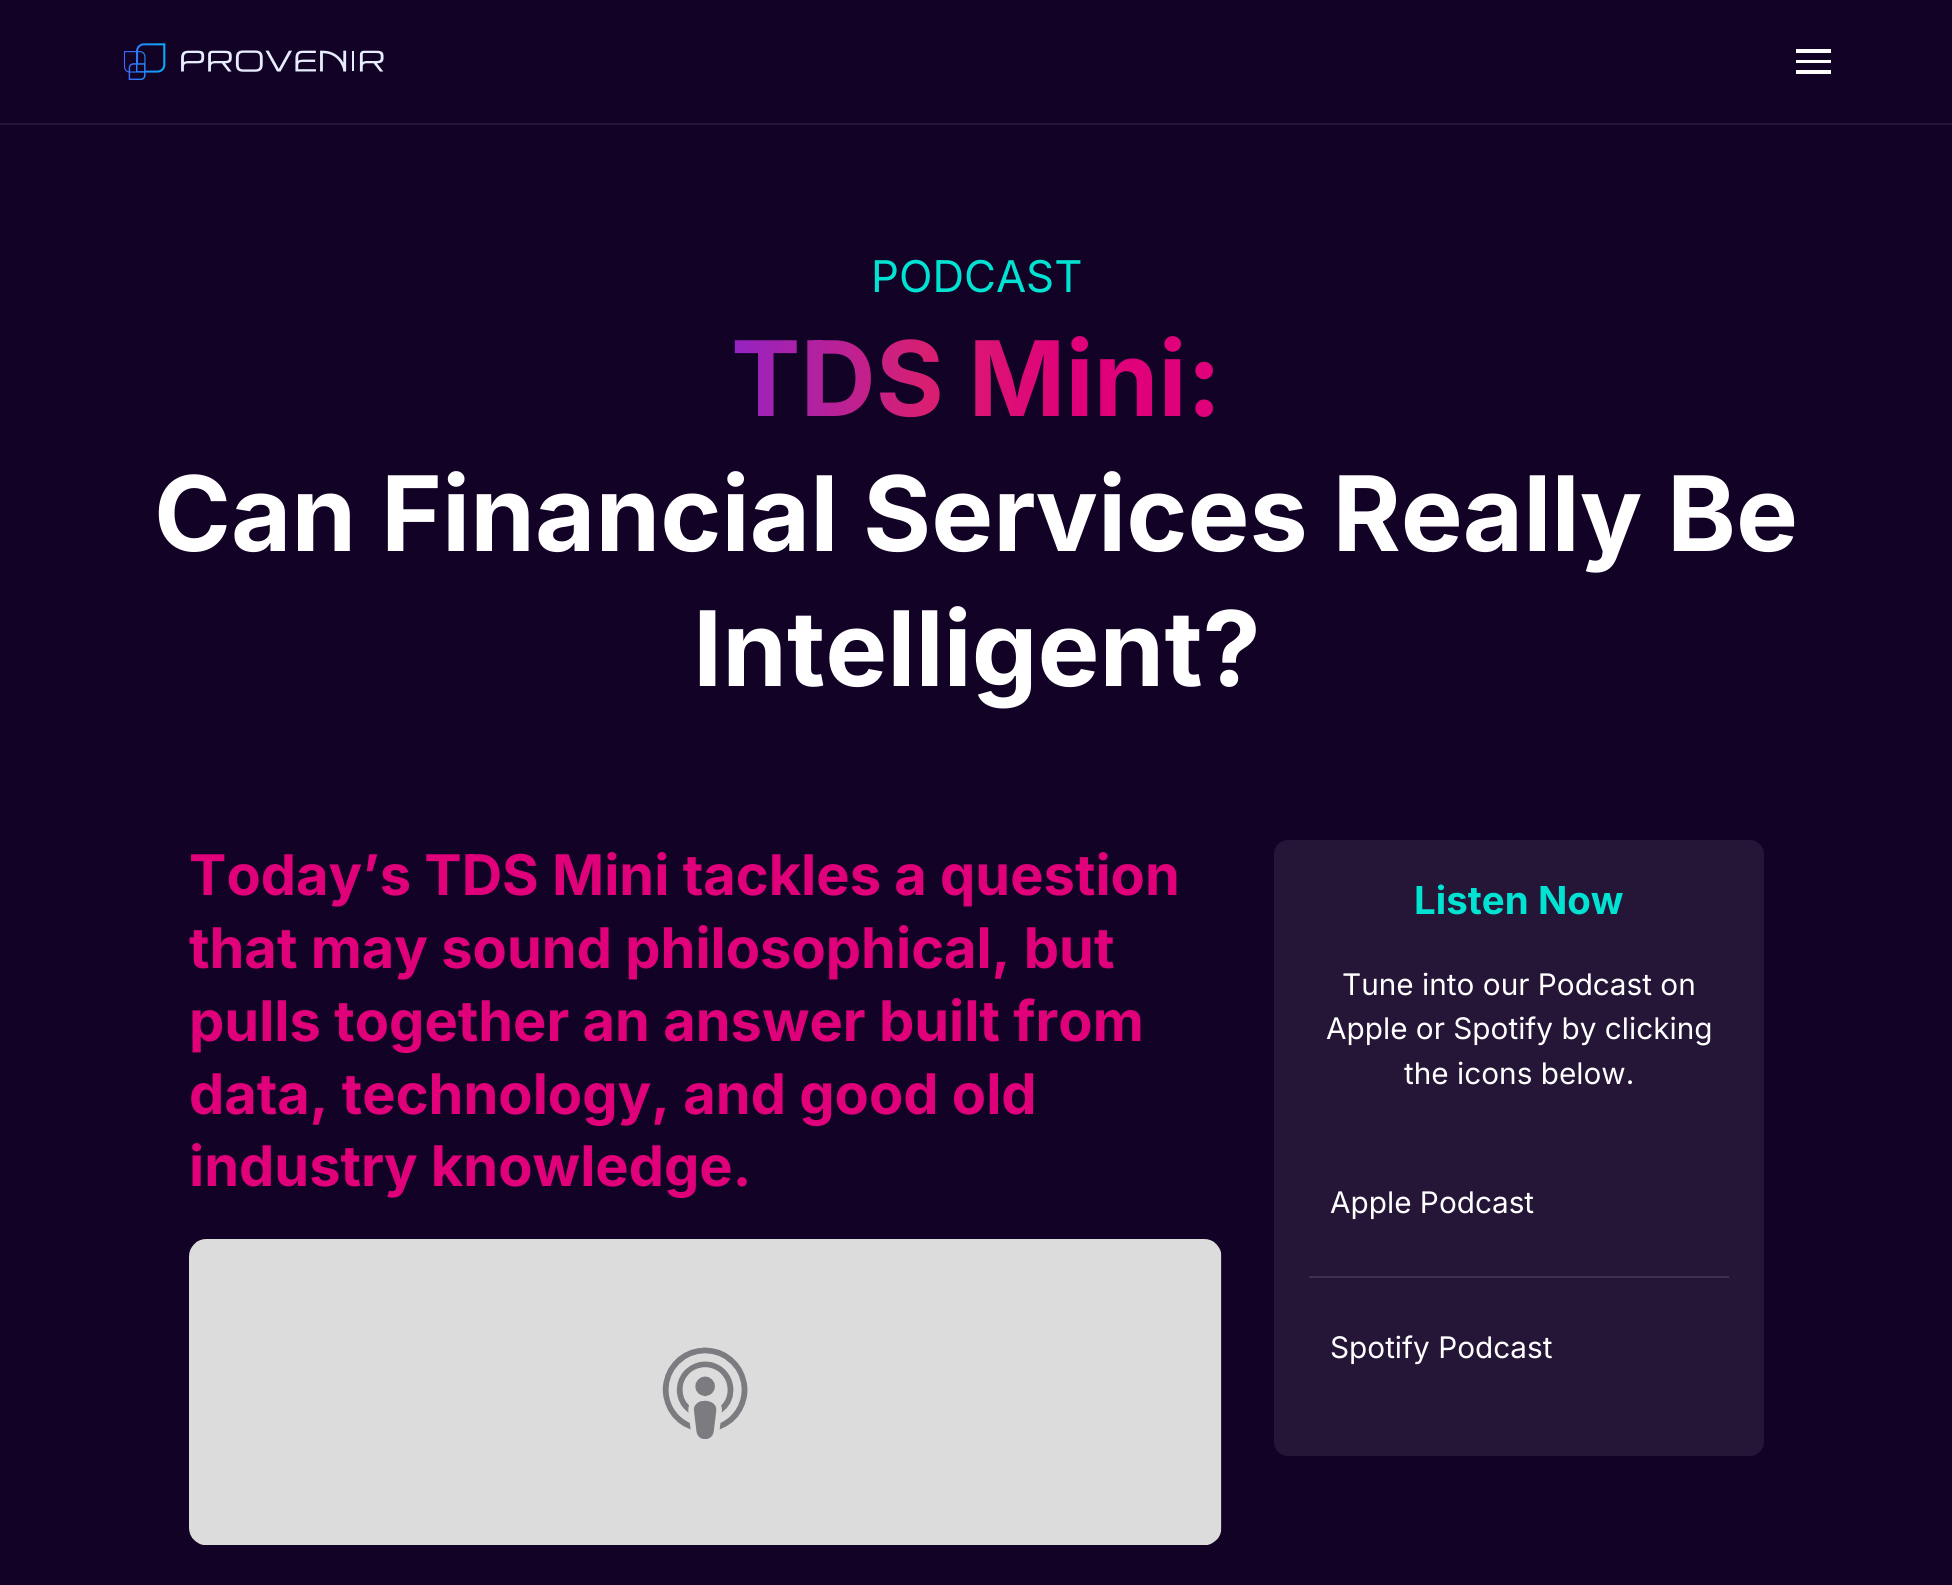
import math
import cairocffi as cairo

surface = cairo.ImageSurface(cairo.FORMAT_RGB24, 1952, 1585)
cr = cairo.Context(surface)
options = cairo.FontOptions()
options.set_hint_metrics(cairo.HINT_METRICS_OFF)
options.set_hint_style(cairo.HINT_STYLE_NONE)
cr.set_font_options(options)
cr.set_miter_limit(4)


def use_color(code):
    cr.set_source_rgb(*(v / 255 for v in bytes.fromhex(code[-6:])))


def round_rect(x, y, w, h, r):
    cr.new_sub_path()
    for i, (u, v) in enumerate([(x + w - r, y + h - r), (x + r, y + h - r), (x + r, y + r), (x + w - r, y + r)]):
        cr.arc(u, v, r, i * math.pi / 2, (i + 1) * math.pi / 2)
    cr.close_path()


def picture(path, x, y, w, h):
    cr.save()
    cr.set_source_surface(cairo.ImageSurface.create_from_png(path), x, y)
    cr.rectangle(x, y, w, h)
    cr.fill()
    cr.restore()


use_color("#120226")
cr.paint()
use_color("#251637")
cr.rectangle(0, 123, 1952, 2)
cr.fill()
picture("img1.png", 123, 43, 261, 37)
use_color("#ffffff")
cr.rectangle(1796, 49, 35, 4)
cr.fill()
cr.rectangle(1796, 60, 35, 3)
cr.fill()
cr.rectangle(1796, 70, 35, 4)
cr.fill()
cr.select_font_face("Inter")
cr.set_font_size(43.75)
use_color("#00e3d3")
cr.move_to(871, 292)
cr.show_text("PODCAST")
cr.select_font_face("Inter", cairo.FONT_SLANT_NORMAL, cairo.FONT_WEIGHT_BOLD)
cr.set_font_size(104.1)
gradient = cairo.LinearGradient(731, 378, 1222, 378)
gradient.add_color_stop_rgba(0, 0.58, 0.137, 0.765, 1)
gradient.add_color_stop_rgba(0.4, 0.851, 0.122, 0.443, 1)
gradient.add_color_stop_rgba(0.7, 0.878, 0, 0.478, 1)
gradient.add_color_stop_rgba(1, 0.878, 0, 0.478, 1)
cr.set_source(gradient)
cr.move_to(731, 416)
cr.show_text("TDS Mini:")
use_color("#ffffff")
cr.move_to(154, 551)
cr.show_text("Can Financial Services Really Be")
cr.move_to(693, 686)
cr.show_text("Intelligent?")
cr.set_font_size(56)
use_color("#e0007a")
cr.move_to(189, 895)
cr.show_text("Today’s TDS Mini tackles a question")
cr.move_to(189, 968)
cr.show_text("that may sound philosophical, but")
cr.move_to(189, 1041)
cr.show_text("pulls together an answer built from")
cr.move_to(189, 1114)
cr.show_text("data, technology, and good old")
cr.move_to(189, 1186)
cr.show_text("industry knowledge.")
picture("img2.png", 189, 1239, 1033, 306)
use_color("#251637")
round_rect(1274, 840, 490, 616, 14)
cr.fill()
cr.set_font_size(38.5)
use_color("#00e3d3")
cr.move_to(1414, 914)
cr.show_text("Listen Now")
cr.select_font_face("Inter")
cr.set_font_size(29.75)
use_color("#ffffff")
cr.move_to(1342, 995)
cr.show_text("Tune into our Podcast on")
cr.move_to(1326, 1039)
cr.show_text("Apple or Spotify by clicking")
cr.move_to(1404, 1084)
cr.show_text("the icons below.")
cr.move_to(1330, 1213)
cr.show_text("Apple Podcast")
use_color("#3d304d")
cr.rectangle(1309, 1276, 420, 2)
cr.fill()
use_color("#ffffff")
cr.move_to(1330, 1358)
cr.show_text("Spotify Podcast")
surface.write_to_png("result.png")
